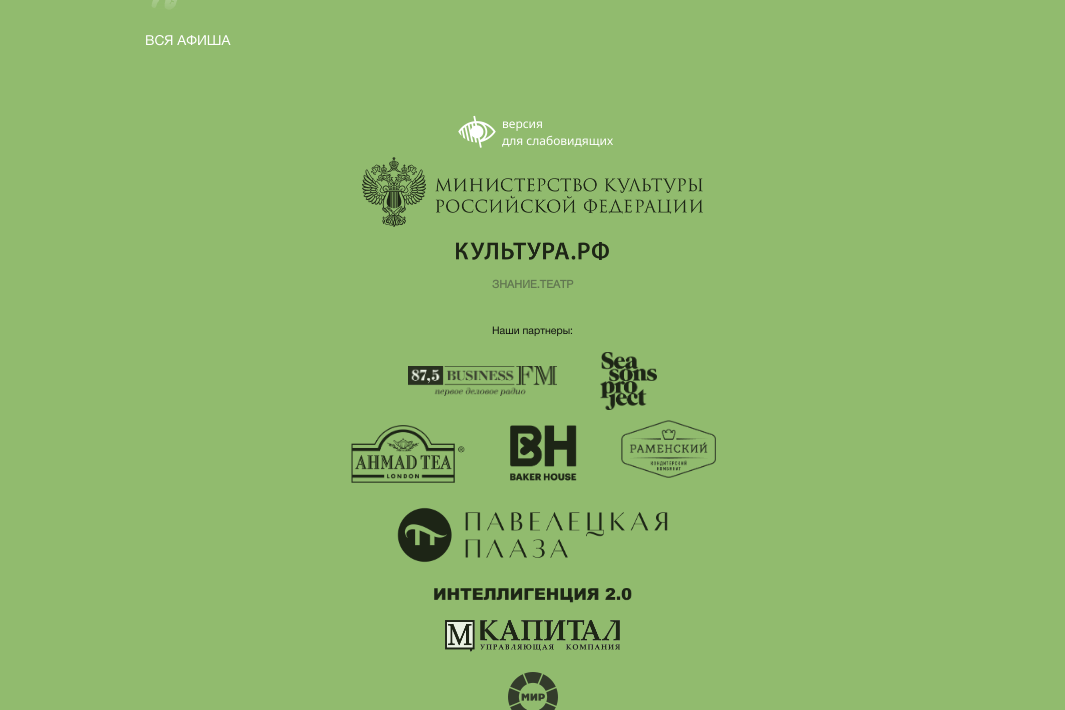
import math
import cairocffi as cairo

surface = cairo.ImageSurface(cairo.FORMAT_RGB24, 1065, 710)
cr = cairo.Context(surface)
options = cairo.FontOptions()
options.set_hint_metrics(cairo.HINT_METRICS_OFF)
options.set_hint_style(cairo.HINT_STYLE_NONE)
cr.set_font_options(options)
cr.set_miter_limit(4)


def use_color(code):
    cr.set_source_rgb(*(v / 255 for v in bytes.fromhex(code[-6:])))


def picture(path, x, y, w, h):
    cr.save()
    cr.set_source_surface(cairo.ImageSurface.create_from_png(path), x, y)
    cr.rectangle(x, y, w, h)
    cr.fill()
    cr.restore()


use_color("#91bb6e")
cr.paint()
picture("img1.png", 151, 0, 27, 10)
gradient = cairo.LinearGradient(198, -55, 198, 15)
gradient.add_color_stop_rgba(0, 0.569, 0.733, 0.431, 0)
gradient.add_color_stop_rgba(1, 0.569, 0.733, 0.431, 1)
cr.set_source(gradient)
cr.rectangle(151, 0, 27, 10)
cr.fill()
cr.select_font_face("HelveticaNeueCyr")
cr.set_font_size(13.75)
use_color("#ffffff")
cr.move_to(145, 45)
cr.show_text("ВСЯ АФИША")
picture("img2.png", 458, 115, 38, 33)
cr.select_font_face("Noto Sans")
cr.set_font_size(12)
cr.move_to(502, 128)
cr.show_text("версия")
cr.move_to(502, 145)
cr.show_text("для слабовидящих")
picture("img3.png", 362, 157, 341, 70)
picture("img4.png", 456, 242, 153, 18)
cr.select_font_face("HelveticaNeueCyr", cairo.FONT_SLANT_NORMAL, cairo.FONT_WEIGHT_BOLD)
cr.set_font_size(11)
use_color("#627751")
cr.move_to(492, 288)
cr.show_text("ЗНАНИЕ.ТЕАТР")
cr.select_font_face("HelveticaNeueCyr")
cr.set_font_size(10.5)
use_color("#0f0f0f")
cr.move_to(492, 334)
cr.show_text("Наши партнеры:")
picture("img5.png", 408, 366, 149, 30)
picture("img6.png", 600, 352, 57, 58)
picture("img7.png", 351, 425, 114, 58)
picture("img8.png", 510, 425, 67, 56)
picture("img9.png", 621, 420, 95, 58)
picture("img10.png", 397, 507, 271, 56)
picture("img11.png", 434, 588, 198, 15)
picture("img12.png", 445, 620, 175, 32)
picture("img13.png", 508, 672, 50, 38)
surface.write_to_png("result.png")
